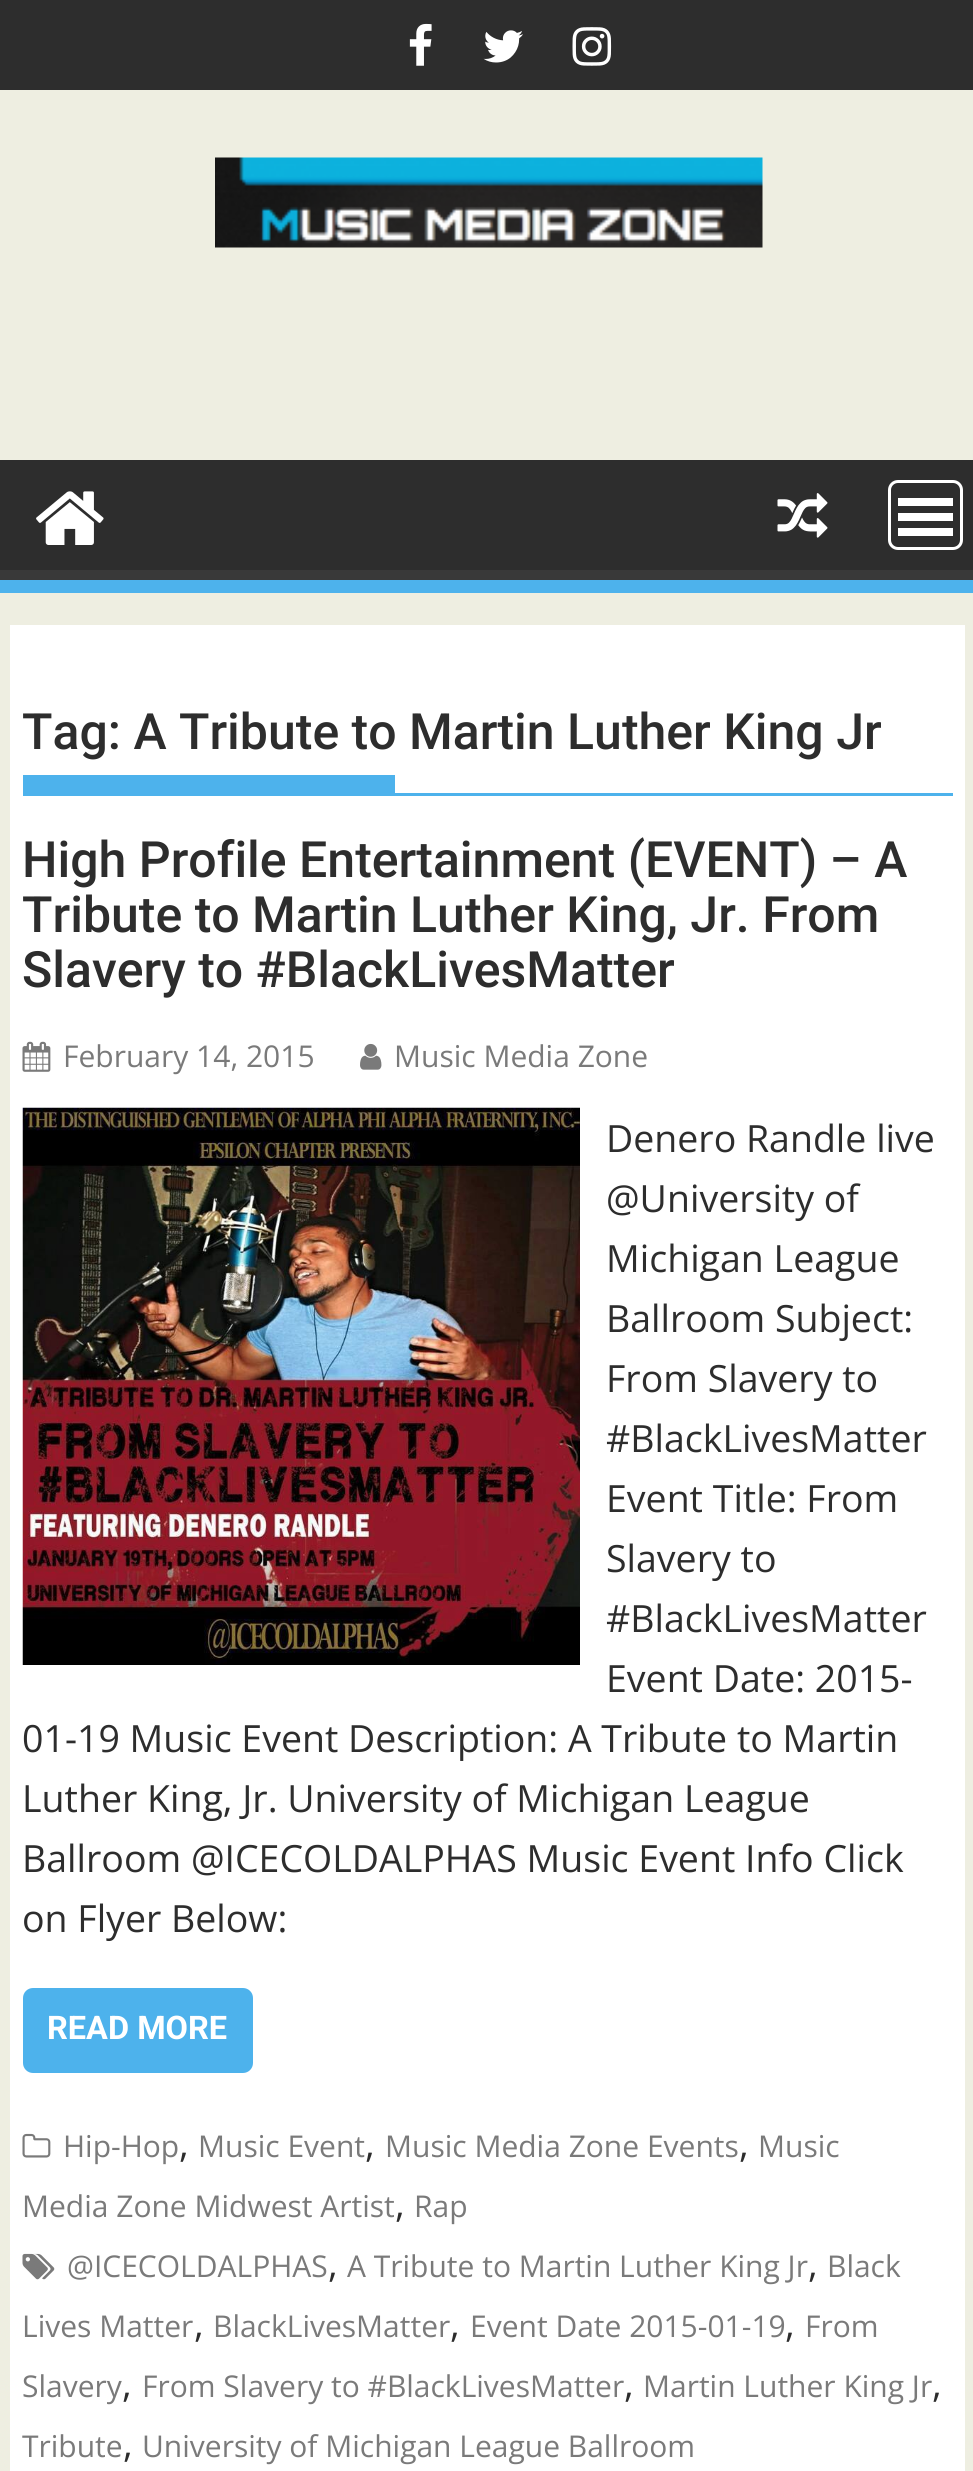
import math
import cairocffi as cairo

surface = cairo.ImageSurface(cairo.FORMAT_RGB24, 973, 2471)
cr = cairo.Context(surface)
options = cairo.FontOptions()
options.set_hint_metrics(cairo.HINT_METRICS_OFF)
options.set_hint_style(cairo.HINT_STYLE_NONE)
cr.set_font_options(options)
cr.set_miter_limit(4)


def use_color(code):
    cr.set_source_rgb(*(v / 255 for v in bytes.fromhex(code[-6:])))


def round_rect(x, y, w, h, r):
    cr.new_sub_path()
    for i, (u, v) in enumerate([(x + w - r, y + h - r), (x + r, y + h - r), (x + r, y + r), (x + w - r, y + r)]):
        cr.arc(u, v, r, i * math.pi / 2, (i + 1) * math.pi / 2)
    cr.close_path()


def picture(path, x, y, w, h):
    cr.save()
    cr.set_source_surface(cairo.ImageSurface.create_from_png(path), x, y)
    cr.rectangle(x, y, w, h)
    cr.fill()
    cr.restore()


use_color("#eeeee1")
cr.paint()
use_color("#2d2d2d")
cr.rectangle(0, 0, 973, 90)
cr.fill()
picture("img1.png", 409, 23, 23, 43)
picture("img2.png", 483, 30, 40, 33)
picture("img3.png", 572, 27, 40, 39)
picture("img4.png", 215, 157, 548, 91)
cr.rectangle(0, 460, 973, 110)
cr.fill()
cr.save()
cr.rectangle(0, 460, 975, 120)
cr.clip()
use_color("#393939")
cr.set_fill_rule(cairo.FILL_RULE_EVEN_ODD)
cr.new_path()
cr.move_to(-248, 212)
cr.line_to(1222, 212)
cr.line_to(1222, 828)
cr.line_to(-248, 828)
cr.close_path()
cr.move_to(-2, 445)
cr.line_to(972, 445)
cr.curve_to(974, 445, 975, 446, 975, 448)
cr.line_to(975, 568)
cr.curve_to(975, 569, 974, 570, 972, 570)
cr.line_to(-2, 570)
cr.curve_to(-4, 570, -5, 569, -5, 568)
cr.line_to(-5, 448)
cr.curve_to(-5, 446, -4, 445, -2, 445)
cr.close_path()
cr.fill()
cr.restore()
use_color("#4db2ec")
cr.rectangle(0, 580, 973, 13)
cr.fill()
picture("img5.png", 36, 491, 68, 54)
picture("img6.png", 777, 493, 51, 45)
round_rect(889.5, 481.5, 72, 67, 8.5)
use_color("#ffffff")
cr.set_line_width(3)
cr.stroke()
cr.rectangle(898, 528, 55, 8)
cr.fill()
cr.rectangle(898, 513, 55, 8)
cr.fill()
cr.rectangle(898, 498, 55, 8)
cr.fill()
cr.rectangle(10, 625, 955, 1846)
cr.fill()
use_color("#4db2ec")
cr.rectangle(23, 793, 930, 3)
cr.fill()
cr.select_font_face("Roboto Medium")
cr.set_font_size(50)
use_color("#2d2d2d")
cr.move_to(22, 749)
cr.show_text("Tag: A Tribute to Martin Luther King Jr")
use_color("#4db2ec")
cr.rectangle(23, 775, 372, 18)
cr.fill()
use_color("#2d2d2d")
cr.move_to(22, 877)
cr.show_text("High Profile Entertainment (EVENT) – A")
cr.move_to(22, 932)
cr.show_text("Tribute to Martin Luther King, Jr. From")
cr.move_to(22, 987)
cr.show_text("Slavery to #BlackLivesMatter")
picture("img7.png", 22, 1041, 29, 31)
cr.select_font_face("Open Sans")
cr.set_font_size(30)
use_color("#7a7a7a")
cr.move_to(63, 1067)
cr.show_text("February 14, 2015")
picture("img8.png", 360, 1043, 22, 27)
cr.move_to(394, 1067)
cr.show_text("Music Media Zone")
picture("img9.png", 22, 1107, 558, 558)
cr.set_font_size(37.5)
use_color("#2d2d2d")
cr.move_to(606, 1152)
cr.show_text("Denero Randle live")
cr.move_to(606, 1212)
cr.show_text("@University of")
cr.move_to(606, 1272)
cr.show_text("Michigan League")
cr.move_to(606, 1332)
cr.show_text("Ballroom Subject:")
cr.move_to(606, 1392)
cr.show_text("From Slavery to")
cr.move_to(606, 1452)
cr.show_text("#BlackLivesMatter")
cr.move_to(606, 1512)
cr.show_text("Event Title: From")
cr.move_to(606, 1572)
cr.show_text("Slavery to")
cr.move_to(606, 1632)
cr.show_text("#BlackLivesMatter")
cr.move_to(606, 1692)
cr.show_text("Event Date: 2015-")
cr.move_to(22, 1752)
cr.show_text("01-19 Music Event Description: A Tribute to Martin")
cr.move_to(22, 1812)
cr.show_text("Luther King, Jr. University of Michigan League")
cr.move_to(22, 1872)
cr.show_text("Ballroom @ICECOLDALPHAS Music Event Info Click")
cr.move_to(22, 1932)
cr.show_text("on Flyer Below:")
use_color("#4db2ec")
round_rect(23, 1988, 230, 85, 10)
cr.fill()
cr.select_font_face("Roboto", cairo.FONT_SLANT_NORMAL, cairo.FONT_WEIGHT_BOLD)
cr.set_font_size(32.5)
use_color("#ffffff")
cr.move_to(47, 2039)
cr.show_text("READ MORE")
picture("img10.png", 22, 2133, 29, 25)
cr.select_font_face("Open Sans")
cr.set_font_size(30)
use_color("#7a7a7a")
cr.move_to(63, 2157)
cr.show_text("Hip-Hop")
cr.set_font_size(37.5)
use_color("#2d2d2d")
cr.move_to(179, 2157)
cr.show_text(",")
cr.set_font_size(30)
use_color("#7a7a7a")
cr.move_to(198, 2157)
cr.show_text("Music Event")
cr.set_font_size(37.5)
use_color("#2d2d2d")
cr.move_to(365, 2157)
cr.show_text(",")
cr.set_font_size(30)
use_color("#7a7a7a")
cr.move_to(385, 2157)
cr.show_text("Music Media Zone Events")
cr.set_font_size(37.5)
use_color("#2d2d2d")
cr.move_to(739, 2157)
cr.show_text(",")
cr.set_font_size(30)
use_color("#7a7a7a")
cr.move_to(758, 2157)
cr.show_text("Music")
cr.move_to(22, 2217)
cr.show_text("Media Zone Midwest Artist")
cr.set_font_size(37.5)
use_color("#2d2d2d")
cr.move_to(395, 2217)
cr.show_text(",")
cr.set_font_size(30)
use_color("#7a7a7a")
cr.move_to(414, 2217)
cr.show_text("Rap")
picture("img11.png", 22, 2253, 33, 27)
cr.move_to(67, 2277)
cr.show_text("@ICECOLDALPHAS")
cr.set_font_size(37.5)
use_color("#2d2d2d")
cr.move_to(328, 2277)
cr.show_text(",")
cr.set_font_size(30)
use_color("#7a7a7a")
cr.move_to(347, 2277)
cr.show_text("A Tribute to Martin Luther King Jr")
cr.set_font_size(37.5)
use_color("#2d2d2d")
cr.move_to(808, 2277)
cr.show_text(",")
cr.set_font_size(30)
use_color("#7a7a7a")
cr.move_to(827, 2277)
cr.show_text("Black")
cr.move_to(22, 2337)
cr.show_text("Lives Matter")
cr.set_font_size(37.5)
use_color("#2d2d2d")
cr.move_to(194, 2337)
cr.show_text(",")
cr.set_font_size(30)
use_color("#7a7a7a")
cr.move_to(213, 2337)
cr.show_text("BlackLivesMatter")
cr.set_font_size(37.5)
use_color("#2d2d2d")
cr.move_to(450, 2337)
cr.show_text(",")
cr.set_font_size(30)
use_color("#7a7a7a")
cr.move_to(470, 2337)
cr.show_text("Event Date 2015-01-19")
cr.set_font_size(37.5)
use_color("#2d2d2d")
cr.move_to(785, 2337)
cr.show_text(",")
cr.set_font_size(30)
use_color("#7a7a7a")
cr.move_to(805, 2337)
cr.show_text("From")
cr.move_to(22, 2397)
cr.show_text("Slavery")
cr.set_font_size(37.5)
use_color("#2d2d2d")
cr.move_to(122, 2397)
cr.show_text(",")
cr.set_font_size(30)
use_color("#7a7a7a")
cr.move_to(142, 2397)
cr.show_text("From Slavery to #BlackLivesMatter")
cr.set_font_size(37.5)
use_color("#2d2d2d")
cr.move_to(624, 2397)
cr.show_text(",")
cr.set_font_size(30)
use_color("#7a7a7a")
cr.move_to(643, 2397)
cr.show_text("Martin Luther King Jr")
cr.set_font_size(37.5)
use_color("#2d2d2d")
cr.move_to(932, 2397)
cr.show_text(",")
cr.set_font_size(30)
use_color("#7a7a7a")
cr.move_to(22, 2457)
cr.show_text("Tribute")
cr.set_font_size(37.5)
use_color("#2d2d2d")
cr.move_to(123, 2457)
cr.show_text(",")
cr.set_font_size(30)
use_color("#7a7a7a")
cr.move_to(142, 2457)
cr.show_text("University of Michigan League Ballroom")
surface.write_to_png("result.png")
